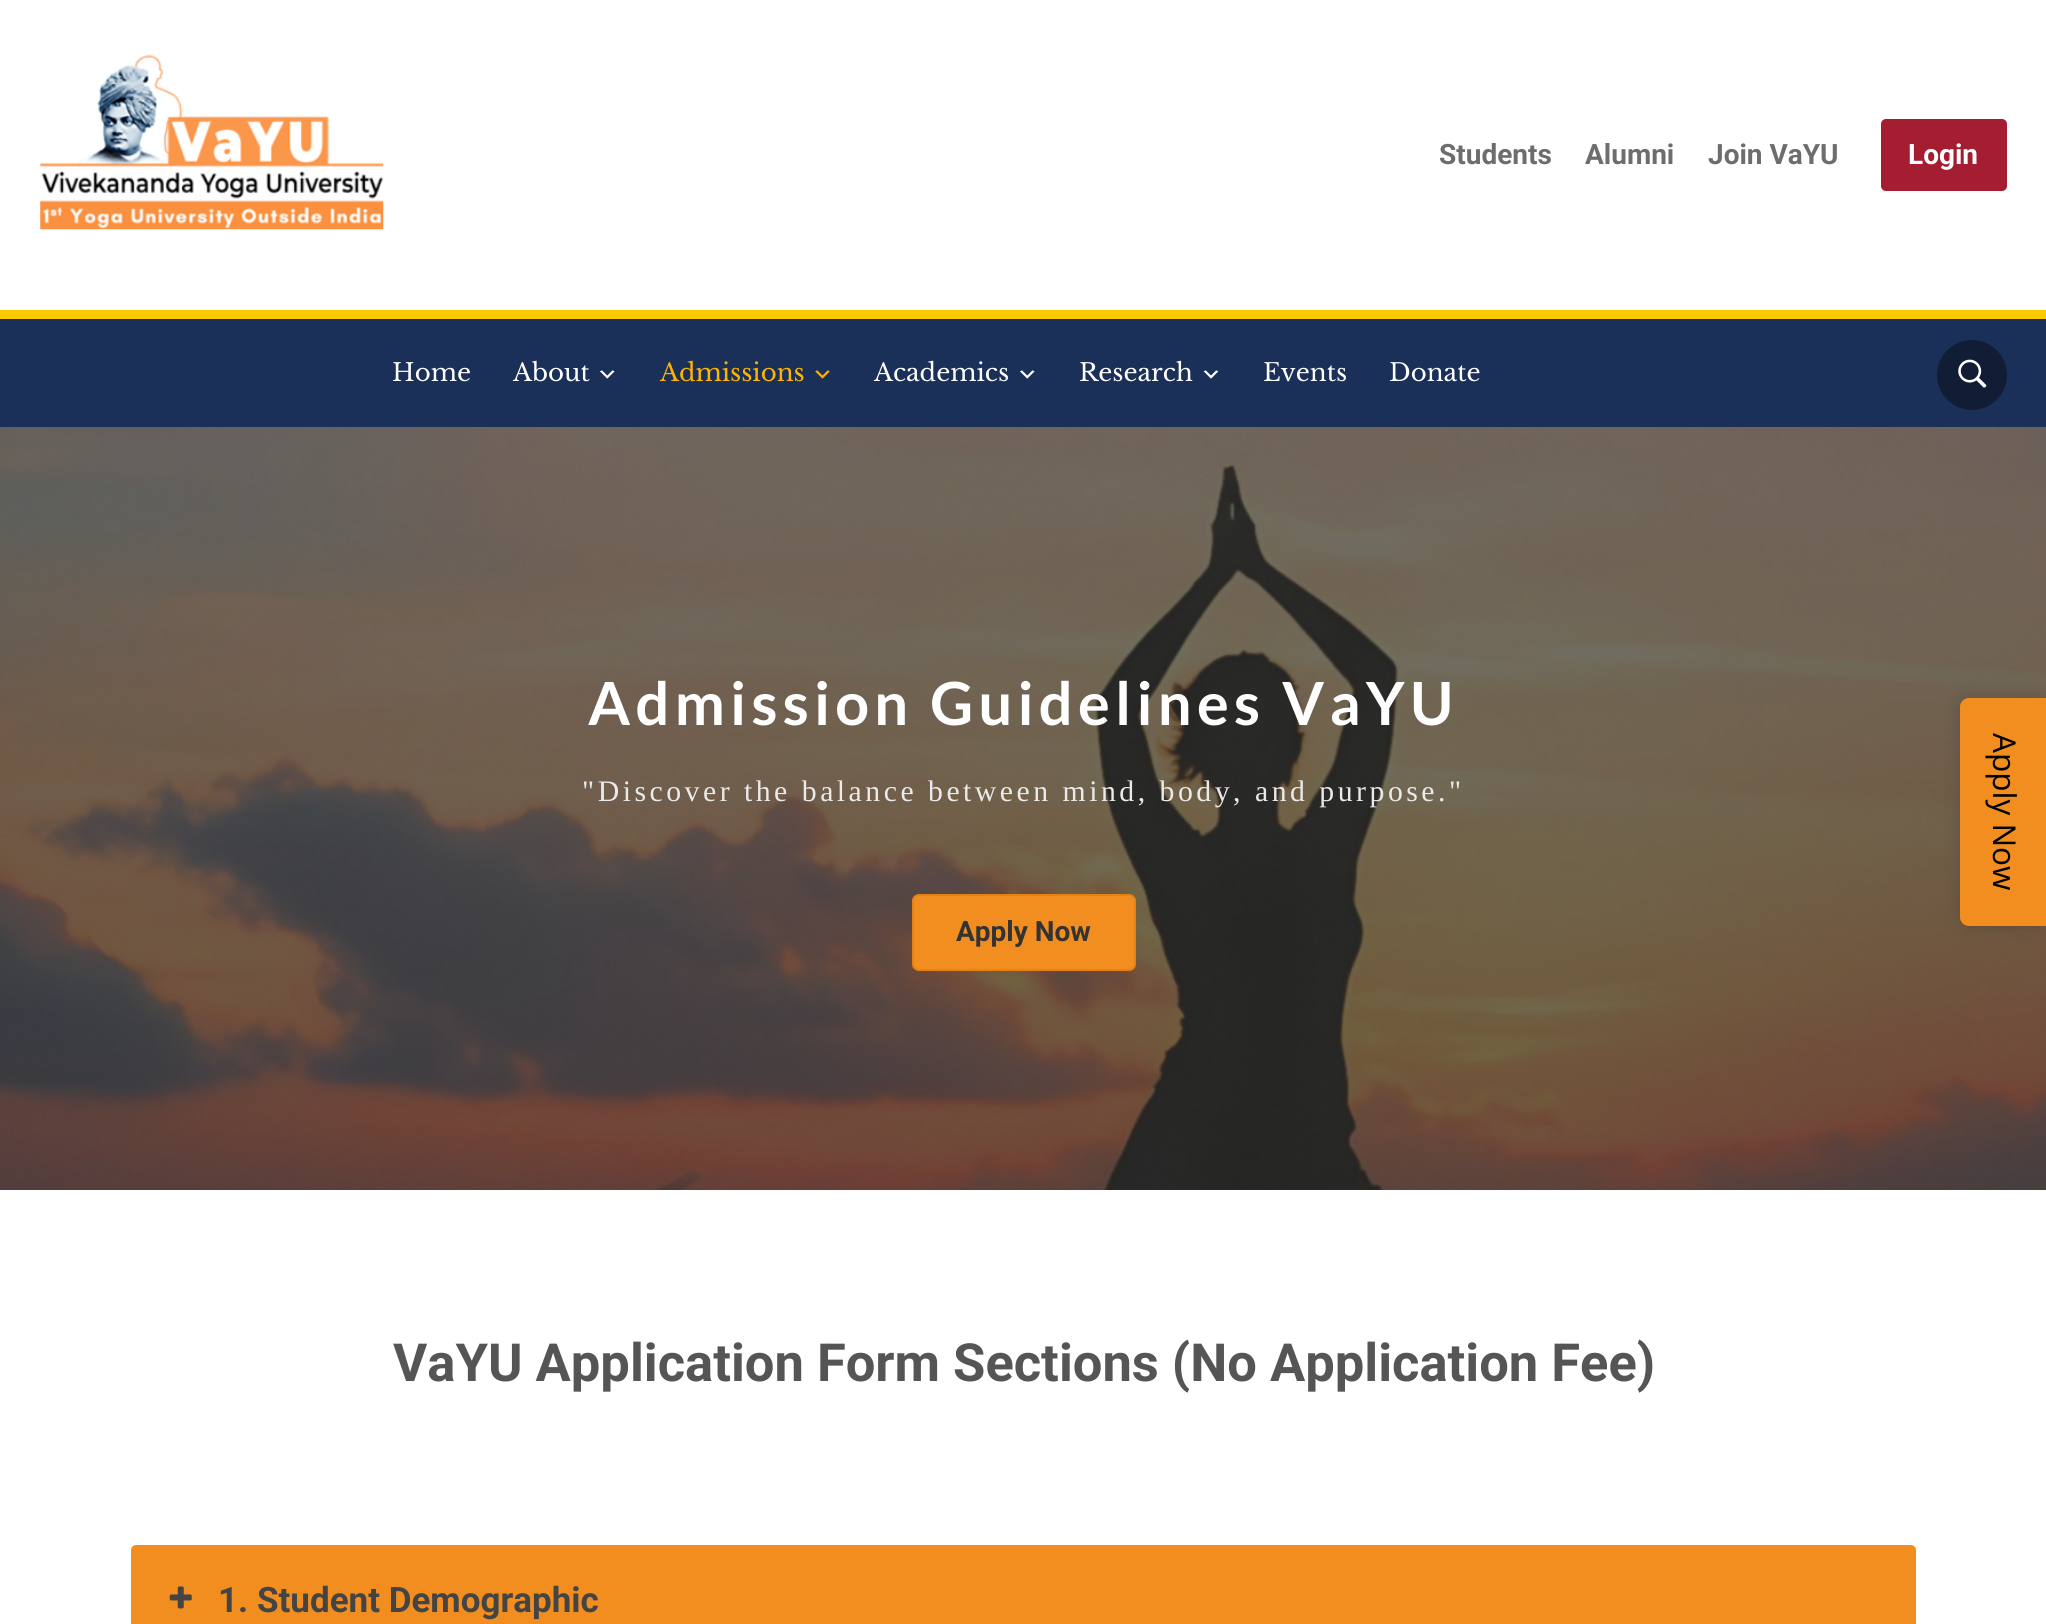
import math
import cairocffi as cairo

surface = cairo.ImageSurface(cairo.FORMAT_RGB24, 2046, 1624)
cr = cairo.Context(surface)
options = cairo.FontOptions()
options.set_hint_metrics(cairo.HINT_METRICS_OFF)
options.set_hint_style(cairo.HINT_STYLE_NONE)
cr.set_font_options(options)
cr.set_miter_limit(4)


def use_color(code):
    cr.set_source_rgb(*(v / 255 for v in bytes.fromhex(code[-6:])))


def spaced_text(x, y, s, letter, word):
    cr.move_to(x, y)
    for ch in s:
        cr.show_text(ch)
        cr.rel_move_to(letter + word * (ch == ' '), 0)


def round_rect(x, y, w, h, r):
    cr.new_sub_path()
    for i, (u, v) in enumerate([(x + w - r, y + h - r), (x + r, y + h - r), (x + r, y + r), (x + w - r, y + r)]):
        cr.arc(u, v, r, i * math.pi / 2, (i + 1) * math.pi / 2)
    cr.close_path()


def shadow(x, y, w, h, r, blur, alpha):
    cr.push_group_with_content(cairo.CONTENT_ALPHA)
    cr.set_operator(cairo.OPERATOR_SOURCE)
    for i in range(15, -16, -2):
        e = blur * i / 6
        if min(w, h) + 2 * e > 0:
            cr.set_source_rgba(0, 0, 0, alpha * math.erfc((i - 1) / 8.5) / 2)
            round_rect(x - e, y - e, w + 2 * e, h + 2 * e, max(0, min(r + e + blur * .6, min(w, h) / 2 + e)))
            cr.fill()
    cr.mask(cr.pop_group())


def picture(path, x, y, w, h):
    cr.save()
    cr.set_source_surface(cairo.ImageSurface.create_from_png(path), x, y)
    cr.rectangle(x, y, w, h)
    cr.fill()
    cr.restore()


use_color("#ffffff")
cr.paint()
picture("img1.png", 40, 54, 344, 176)
cr.select_font_face("Roboto", cairo.FONT_SLANT_NORMAL, cairo.FONT_WEIGHT_BOLD)
cr.set_font_size(28)
use_color("#6d6d6d")
cr.move_to(1439, 164)
cr.show_text("Students")
cr.move_to(1585, 164)
cr.show_text("Alumni")
cr.move_to(1708, 164)
cr.show_text("Join VaYU")
use_color("#a41d31")
round_rect(1881, 119, 126, 72, 5)
cr.fill()
use_color("#ffffff")
cr.move_to(1908, 164)
cr.show_text("Login")
use_color("#1b3058")
cr.rectangle(0, 319, 2046, 108)
cr.fill()
use_color("#ffcb00")
cr.rectangle(0, 310, 2046, 9)
cr.fill()
cr.select_font_face("Libre Baskerville")
cr.set_font_size(24.5)
use_color("#ffffff")
cr.move_to(392, 381)
cr.show_text("Home")
cr.move_to(513, 381)
cr.show_text("About")
picture("img2.png", 600, 370, 15, 9)
use_color("#ffb400")
cr.move_to(660, 381)
cr.show_text("Admissions")
picture("img3.png", 815, 370, 15, 9)
use_color("#ffffff")
cr.move_to(874, 381)
cr.show_text("Academics")
picture("img2.png", 1020, 370, 15, 9)
cr.move_to(1079, 381)
cr.show_text("Research")
picture("img4.png", 1203, 370, 16, 9)
cr.move_to(1263, 381)
cr.show_text("Events")
cr.move_to(1389, 381)
cr.show_text("Donate")
use_color("#101d35")
cr.new_path()
cr.arc(1972, 375, 35, 0, 2 * math.pi)
cr.fill()
picture("img5.png", 1958, 359, 29, 29)
picture("img6.png", 0, 427, 2046, 763)
cr.select_font_face("Lato", cairo.FONT_SLANT_NORMAL, cairo.FONT_WEIGHT_BOLD)
cr.set_font_size(59.5)
use_color("#ffffff")
spaced_text(588, 725, "Admission Guidelines VaYU", 5.25, 0)
cr.select_font_face("Liberation Serif")
cr.set_font_size(29.75)
use_color("#eaeaea")
spaced_text(582, 801, "\"Discover the balance between mind, body, and purpose.\"", 3.5, 0)
use_color("#f28e1f")
round_rect(913, 895, 222, 75, 6)
cr.fill_preserve()
use_color("#e68213")
cr.stroke()
cr.select_font_face("Roboto", cairo.FONT_SLANT_NORMAL, cairo.FONT_WEIGHT_BOLD)
cr.set_font_size(28)
use_color("#333333")
cr.move_to(956, 941)
cr.show_text("Apply Now")
cr.set_font_size(52.5)
use_color("#555555")
cr.move_to(393, 1381)
cr.show_text("VaYU Application Form Sections (No Application Fee)")
use_color("#f28e1f")
round_rect(133, 1547, 1781, 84, 3)
cr.fill_preserve()
cr.set_line_width(4)
cr.stroke()
picture("img7.png", 169, 1586, 23, 23)
cr.set_font_size(35)
use_color("#444444")
cr.move_to(218, 1612)
cr.show_text("1. Student Demographic")
use_color("#131313")
shadow(1960, 698, 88, 228, 12, 9, 0.2)
use_color("#f28e1f")
cr.new_path()
cr.move_to(1969, 698)
cr.line_to(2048, 698)
cr.line_to(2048, 926)
cr.line_to(1969, 926)
cr.curve_to(1964, 926, 1960, 922, 1960, 917)
cr.line_to(1960, 707)
cr.curve_to(1960, 702, 1964, 698, 1969, 698)
cr.close_path()
cr.fill()
cr.select_font_face("Open Sans")
cr.set_font_size(31.5)
use_color("#000000")
cr.save()
cr.translate(1993, 733)
cr.rotate(90 * math.pi / 180)
cr.move_to(0, 0)
cr.show_text("Apply Now")
cr.restore()
surface.write_to_png("result.png")
